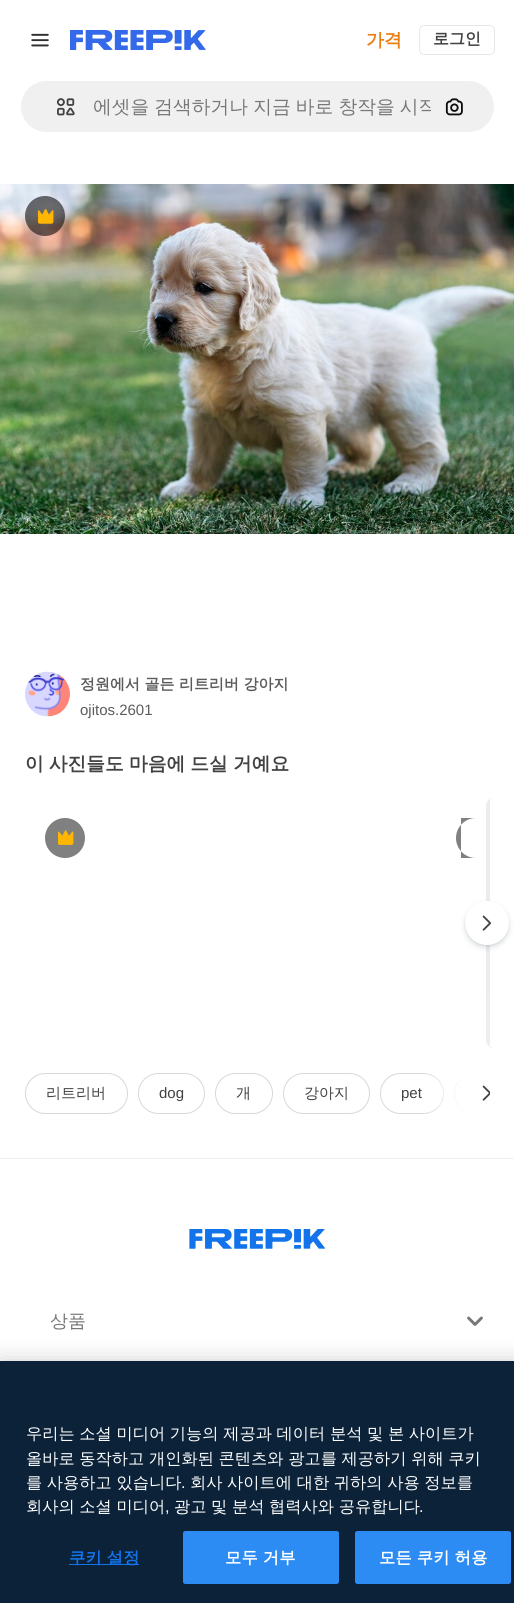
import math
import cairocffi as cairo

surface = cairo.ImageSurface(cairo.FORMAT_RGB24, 514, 1603)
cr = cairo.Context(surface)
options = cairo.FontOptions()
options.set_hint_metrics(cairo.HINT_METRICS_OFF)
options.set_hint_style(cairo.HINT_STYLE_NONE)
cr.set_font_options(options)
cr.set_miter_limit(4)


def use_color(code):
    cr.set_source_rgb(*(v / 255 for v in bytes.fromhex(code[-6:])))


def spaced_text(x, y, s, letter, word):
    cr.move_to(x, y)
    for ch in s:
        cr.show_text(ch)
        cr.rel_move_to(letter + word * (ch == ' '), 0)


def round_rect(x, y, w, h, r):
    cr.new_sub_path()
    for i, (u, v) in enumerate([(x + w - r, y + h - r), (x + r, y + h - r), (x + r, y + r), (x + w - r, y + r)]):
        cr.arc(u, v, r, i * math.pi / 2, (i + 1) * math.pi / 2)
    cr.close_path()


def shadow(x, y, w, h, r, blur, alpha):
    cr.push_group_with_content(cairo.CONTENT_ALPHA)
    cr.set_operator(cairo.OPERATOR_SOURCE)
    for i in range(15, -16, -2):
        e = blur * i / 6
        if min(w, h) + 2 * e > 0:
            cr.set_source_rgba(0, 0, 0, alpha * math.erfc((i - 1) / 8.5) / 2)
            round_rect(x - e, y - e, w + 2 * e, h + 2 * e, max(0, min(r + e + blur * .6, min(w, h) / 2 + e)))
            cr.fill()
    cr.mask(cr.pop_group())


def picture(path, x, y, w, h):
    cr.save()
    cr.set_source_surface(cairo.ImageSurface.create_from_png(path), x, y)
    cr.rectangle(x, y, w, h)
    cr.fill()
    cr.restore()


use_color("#ffffff")
cr.paint()
picture("img1.png", 31, 33, 18, 14)
picture("img2.png", 70, 30, 136, 20)
cr.select_font_face("WenQuanYi Zen Hei", cairo.FONT_SLANT_NORMAL, cairo.FONT_WEIGHT_BOLD)
cr.set_font_size(18)
use_color("#ea7e11")
cr.move_to(366, 46)
cr.show_text("가격")
round_rect(419.5, 25.5, 75, 29, 4.5)
use_color("#e7e7e7")
cr.set_line_width(1)
cr.stroke()
cr.set_font_size(16)
use_color("#424242")
cr.move_to(433, 44)
cr.show_text("로그인")
use_color("#f0f0f0")
round_rect(20.5, 80.5, 474, 52, 26)
cr.fill_preserve()
use_color("#ffffff")
cr.stroke()
picture("img3.png", 56, 98, 19, 18)
cr.save()
cr.rectangle(93, 95, 338, 24)
cr.clip()
cr.select_font_face("WenQuanYi Zen Hei Medium")
cr.set_font_size(18.75)
use_color("#777777")
spaced_text(93, 113, "에셋을 검색하거나 지금 바로 창작을 시작", 0, -0.5)
cr.restore()
picture("img4.png", 445, 98, 18, 18)
picture("img5.png", 0, 184, 514, 350)
cr.set_source_rgba(0.051, 0.051, 0.051, 0.6)
cr.arc(45, 216, 20, 0, 2 * math.pi)
cr.fill()
picture("img6.png", 38, 209, 16, 15)
picture("img7.png", 25, 671, 45, 46)
cr.set_font_size(15)
use_color("#5c5c5c")
cr.move_to(80, 689)
cr.show_text("정원에서 골든 리트리버 강아지")
cr.select_font_face("Liberation Sans")
cr.move_to(80, 715)
cr.show_text("ojitos.2601")
cr.select_font_face("WenQuanYi Zen Hei", cairo.FONT_SLANT_NORMAL, cairo.FONT_WEIGHT_BOLD)
cr.set_font_size(18.75)
use_color("#424242")
spaced_text(25, 770, "이 사진들도 마음에 드실 거예요", 0, -0.5)
use_color("#808080")
cr.new_path()
cr.arc(65, 838, 20, 0, 2 * math.pi)
cr.fill()
picture("img8.png", 58, 830, 16, 15)
cr.new_path()
cr.move_to(476, 818)
cr.line_to(461, 818)
cr.line_to(461, 858)
cr.line_to(476, 858)
cr.curve_to(465, 858, 456, 849, 456, 838)
cr.curve_to(456, 827, 465, 818, 476, 818)
cr.close_path()
cr.fill()
gradient = cairo.LinearGradient(490, 787, 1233, 1058)
gradient.add_color_stop_rgba(0.08, 0.925, 0.925, 0.925, 1)
gradient.add_color_stop_rgba(0.18, 0.961, 0.961, 0.961, 1)
gradient.add_color_stop_rgba(0.33, 0.925, 0.925, 0.925, 1)
cr.set_source(gradient)
cr.new_path()
cr.move_to(494, 798)
cr.line_to(490, 798)
cr.line_to(490, 1048)
cr.line_to(494, 1048)
cr.curve_to(489.5, 1048, 486, 1044.5, 486, 1040)
cr.line_to(486, 806)
cr.curve_to(486, 801.5, 489.5, 798, 494, 798)
cr.close_path()
cr.fill()
use_color("#374957")
shadow(465, 904, 44, 44, 22, 3, 0.15)
shadow(465, 903, 44, 43, 21.5, 1, 0.1)
use_color("#ffffff")
cr.arc(487, 923, 22, 0, 2 * math.pi)
cr.fill()
picture("img9.png", 482, 915, 10, 16)
round_rect(25.5, 1073.5, 102, 40, 20)
use_color("#d8d8d8")
cr.stroke()
cr.select_font_face("WenQuanYi Zen Hei Medium")
cr.set_font_size(15)
use_color("#424242")
cr.move_to(46, 1098)
cr.show_text("리트리버")
round_rect(138.5, 1073.5, 66, 40, 20)
use_color("#d8d8d8")
cr.stroke()
cr.select_font_face("Liberation Sans")
use_color("#424242")
cr.move_to(159, 1098)
cr.show_text("dog")
round_rect(215.5, 1073.5, 57, 40, 20)
use_color("#d8d8d8")
cr.stroke()
cr.select_font_face("WenQuanYi Zen Hei Medium")
use_color("#424242")
cr.move_to(236, 1098)
cr.show_text("개")
round_rect(283.5, 1073.5, 86, 40, 20)
use_color("#d8d8d8")
cr.stroke()
use_color("#424242")
cr.move_to(304, 1098)
cr.show_text("강아지")
round_rect(380.5, 1073.5, 63, 40, 20)
use_color("#d8d8d8")
cr.stroke()
cr.select_font_face("Liberation Sans")
use_color("#424242")
cr.move_to(401, 1098)
cr.show_text("pet")
cr.save()
cr.rectangle(25, 1073, 465, 41)
cr.clip()
round_rect(454.5, 1073.5, 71, 40, 20)
use_color("#d8d8d8")
cr.stroke()
cr.restore()
use_color("#ffffff")
cr.rectangle(465, 1073, 25, 41)
cr.fill()
gradient = cairo.LinearGradient(465, 1093, 421, 1093)
gradient.add_color_stop_rgba(0, 1, 1, 1, 1)
gradient.add_color_stop_rgba(1, 1, 1, 1, 0)
cr.set_source(gradient)
cr.rectangle(424, 1073, 41, 41)
cr.fill()
picture("img10.png", 482, 1085, 8, 16)
use_color("#f0f0f0")
cr.rectangle(0, 1158, 514, 1)
cr.fill()
picture("img11.png", 189, 1229, 136, 20)
cr.select_font_face("WenQuanYi Zen Hei Medium")
cr.set_font_size(18)
use_color("#777777")
cr.move_to(50, 1327)
cr.show_text("상품")
picture("img12.png", 467, 1316, 16, 10)
use_color("#000000")
shadow(0, 1361, 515, 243, 0, 11, 0.2)
use_color("#0b2239")
cr.rectangle(0, 1361, 514, 242)
cr.fill()
cr.set_font_size(16.25)
use_color("#ffffff")
spaced_text(26, 1439, "우리는 소셜 미디어 기능의 제공과 데이터 분석 및 본 사이트가", 0, -0.25)
spaced_text(26, 1464, "올바로 동작하고 개인화된 콘텐츠와 광고를 제공하기 위해 쿠키", 0, -0.25)
spaced_text(26, 1488, "를 사용하고 있습니다", 0, -0.25)
cr.select_font_face("Liberation Sans")
cr.move_to(181, 1488)
cr.show_text(".")
cr.select_font_face("WenQuanYi Zen Hei Medium")
spaced_text(190, 1488, "회사 사이트에 대한 귀하의 사용 정보를", 0, -0.25)
spaced_text(26, 1512, "회사의 소셜 미디어", 0, -0.25)
cr.select_font_face("Liberation Sans")
cr.move_to(165, 1512)
cr.show_text(",")
cr.select_font_face("WenQuanYi Zen Hei Medium")
spaced_text(174, 1512, "광고 및 분석 협력사와 공유합니다", 0, -0.25)
cr.select_font_face("Liberation Sans")
cr.move_to(419, 1512)
cr.show_text(".")
use_color("#1273eb")
cr.rectangle(69, 1564, 70, 1)
cr.fill()
cr.select_font_face("WenQuanYi Zen Hei", cairo.FONT_SLANT_NORMAL, cairo.FONT_WEIGHT_BOLD)
spaced_text(69, 1563, "쿠키 설정", 0.25, -0.25)
use_color("#2c8cf4")
round_rect(183.5, 1531.5, 155, 52, 2)
cr.fill_preserve()
cr.stroke()
use_color("#ffffff")
spaced_text(225, 1563, "모두 거부", 0.25, -0.25)
use_color("#2c8cf4")
round_rect(355.5, 1531.5, 155, 52, 2)
cr.fill_preserve()
cr.stroke()
use_color("#ffffff")
spaced_text(379, 1563, "모든 쿠키 허용", 0.25, -0.25)
surface.write_to_png("result.png")
